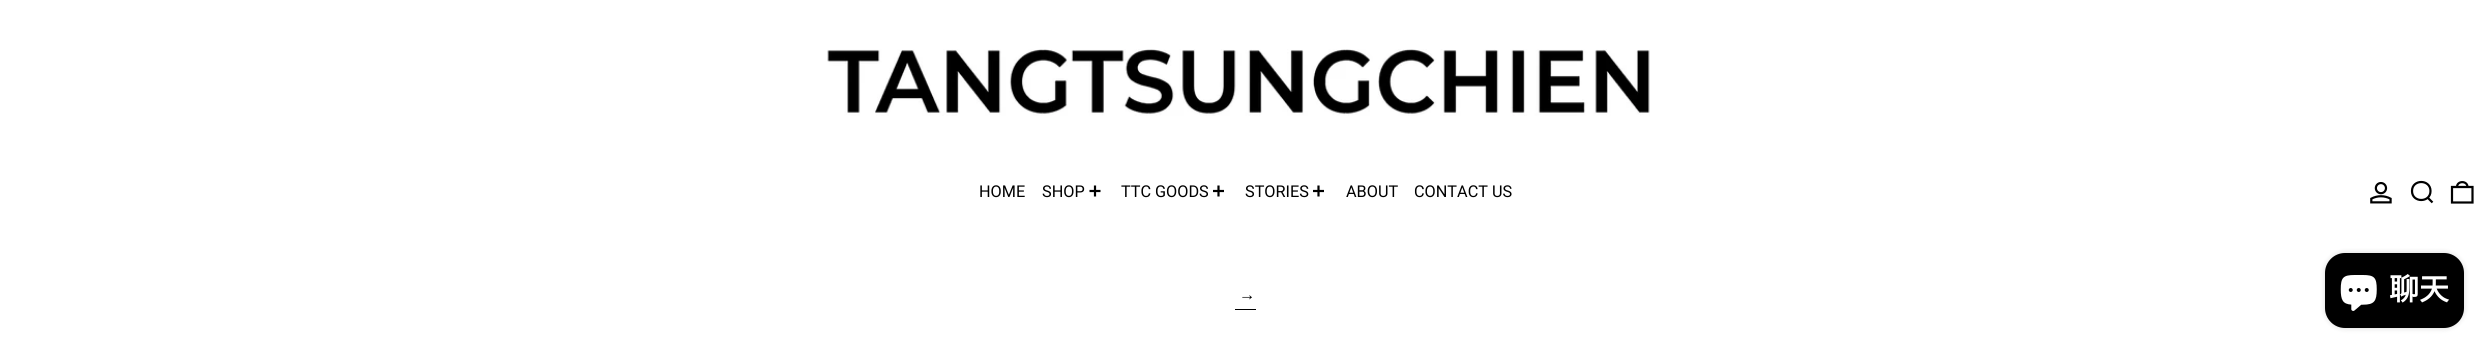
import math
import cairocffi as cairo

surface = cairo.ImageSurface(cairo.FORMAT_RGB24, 2491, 353)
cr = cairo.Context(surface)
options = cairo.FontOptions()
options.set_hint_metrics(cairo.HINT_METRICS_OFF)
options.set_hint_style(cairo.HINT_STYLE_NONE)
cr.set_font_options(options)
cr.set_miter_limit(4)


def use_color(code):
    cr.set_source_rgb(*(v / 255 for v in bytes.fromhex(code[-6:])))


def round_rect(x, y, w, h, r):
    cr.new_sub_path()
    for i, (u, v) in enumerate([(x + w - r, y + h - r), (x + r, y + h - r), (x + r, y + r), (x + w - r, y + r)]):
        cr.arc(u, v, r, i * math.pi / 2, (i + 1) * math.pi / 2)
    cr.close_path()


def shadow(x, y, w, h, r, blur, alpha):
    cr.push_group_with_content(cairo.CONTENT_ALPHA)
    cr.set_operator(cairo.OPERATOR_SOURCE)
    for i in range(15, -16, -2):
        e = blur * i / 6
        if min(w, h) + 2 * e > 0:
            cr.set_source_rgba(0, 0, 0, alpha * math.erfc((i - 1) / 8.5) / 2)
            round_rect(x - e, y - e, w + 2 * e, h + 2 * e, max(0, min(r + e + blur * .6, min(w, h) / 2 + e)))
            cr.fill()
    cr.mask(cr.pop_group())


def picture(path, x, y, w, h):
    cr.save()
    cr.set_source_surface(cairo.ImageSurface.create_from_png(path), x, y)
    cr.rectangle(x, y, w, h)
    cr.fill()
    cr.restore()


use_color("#ffffff")
cr.paint()
picture("img1.png", 827, 49, 823, 67)
cr.select_font_face("Roboto")
cr.set_font_size(16.25)
use_color("#000000")
cr.move_to(979, 197)
cr.show_text("HOME")
cr.move_to(1042, 197)
cr.show_text("SHOP")
cr.new_path()
cr.move_to(1095, 185.5)
cr.line_to(1095, 196.5)
cr.move_to(1089.5, 191)
cr.line_to(1100.5, 191)
cr.set_line_width(2.2)
cr.stroke()
cr.move_to(1121, 197)
cr.show_text("TTC GOODS")
cr.new_path()
cr.move_to(1218.5, 185.5)
cr.line_to(1218.5, 196.5)
cr.move_to(1213, 191)
cr.line_to(1224, 191)
cr.stroke()
cr.move_to(1245, 197)
cr.show_text("STORIES")
cr.new_path()
cr.move_to(1318.5, 185.5)
cr.line_to(1318.5, 196.5)
cr.move_to(1313, 191)
cr.line_to(1324, 191)
cr.stroke()
cr.move_to(1346, 197)
cr.show_text("ABOUT")
cr.move_to(1414, 197)
cr.show_text("CONTACT US")
picture("img2.png", 2370, 182, 22, 22)
cr.new_path()
cr.move_to(2412, 191)
cr.curve_to(2412, 203, 2430.5, 203, 2430.5, 191)
cr.curve_to(2430.5, 179, 2412, 179, 2412, 191)
cr.close_path()
cr.move_to(2427.5, 197.5)
cr.line_to(2432.5, 202.5)
cr.stroke()
cr.new_path()
cr.move_to(2452, 187)
cr.line_to(2472.5, 187)
cr.line_to(2472.5, 202.5)
cr.line_to(2452, 202.5)
cr.close_path()
cr.move_to(2467.5, 187)
cr.curve_to(2467.5, 180.5, 2457, 180.5, 2457, 187)
cr.stroke()
cr.rectangle(1235, 309, 21, 1)
cr.fill()
cr.select_font_face("Liberation Sans")
cr.move_to(1239, 300)
cr.show_text("→")
use_color("#000000")
shadow(2325, 253, 139, 75, 20, 3, 0.15)
use_color("#000000")
round_rect(2325, 253, 139, 75, 20)
cr.fill()
picture("img3.png", 2340, 275, 37, 36)
cr.select_font_face("Noto Sans CJK TC", cairo.FONT_SLANT_NORMAL, cairo.FONT_WEIGHT_BOLD)
cr.set_font_size(30)
use_color("#ffffff")
cr.move_to(2389, 300)
cr.show_text("聊天")
surface.write_to_png("result.png")
